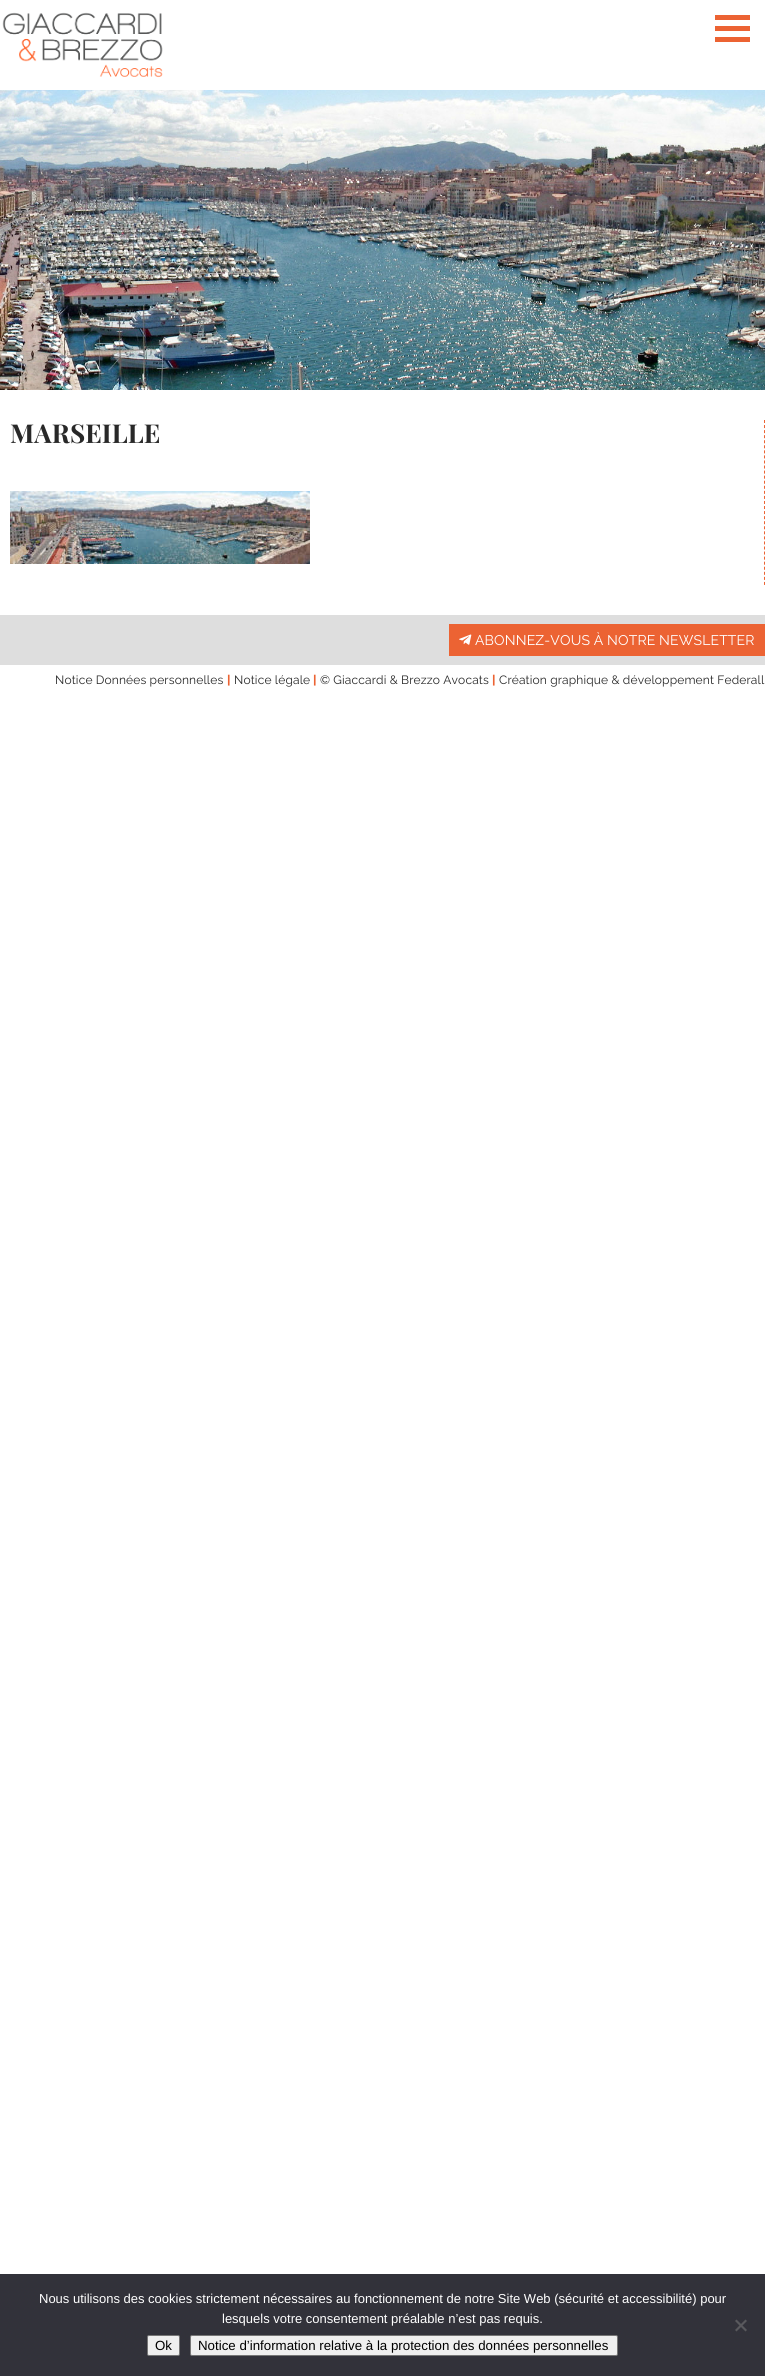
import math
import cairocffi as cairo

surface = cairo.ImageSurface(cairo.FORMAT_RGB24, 765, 2376)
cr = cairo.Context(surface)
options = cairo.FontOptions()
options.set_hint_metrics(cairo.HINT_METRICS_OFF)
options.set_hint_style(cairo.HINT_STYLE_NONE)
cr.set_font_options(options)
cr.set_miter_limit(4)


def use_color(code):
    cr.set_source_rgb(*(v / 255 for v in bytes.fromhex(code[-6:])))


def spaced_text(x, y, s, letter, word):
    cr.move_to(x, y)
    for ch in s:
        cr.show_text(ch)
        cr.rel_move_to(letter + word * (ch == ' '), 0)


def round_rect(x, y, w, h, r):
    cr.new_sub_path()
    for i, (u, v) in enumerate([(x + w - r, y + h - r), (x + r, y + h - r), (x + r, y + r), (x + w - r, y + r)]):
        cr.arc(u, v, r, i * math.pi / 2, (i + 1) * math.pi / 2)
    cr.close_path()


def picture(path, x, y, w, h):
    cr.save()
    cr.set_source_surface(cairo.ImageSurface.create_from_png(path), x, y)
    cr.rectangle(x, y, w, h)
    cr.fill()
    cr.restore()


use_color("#ffffff")
cr.paint()
picture("img1.png", 2, 12, 161, 66)
use_color("#ec6333")
cr.rectangle(715, 15, 35, 5)
cr.fill()
cr.rectangle(715, 26, 35, 5)
cr.fill()
cr.rectangle(715, 37, 35, 5)
cr.fill()
picture("img2.png", 0, 90, 765, 300)
cr.new_path()
cr.move_to(764.5, 420)
cr.line_to(764.5, 585)
cr.set_line_width(1)
cr.set_dash([3, 2.06])
cr.stroke()
cr.select_font_face("Playfair Display", cairo.FONT_SLANT_NORMAL, cairo.FONT_WEIGHT_BOLD)
cr.set_font_size(26)
use_color("#282828")
spaced_text(10, 443, "MARSEILLE", 0.15, 0)
picture("img3.png", 10, 491, 300, 73)
use_color("#dedede")
cr.rectangle(0, 615, 765, 50)
cr.fill()
use_color("#ec6333")
cr.rectangle(449, 624, 316, 32)
cr.fill()
picture("img4.png", 459, 634, 13, 11)
cr.select_font_face("Raleway")
cr.set_font_size(14)
use_color("#ffffff")
spaced_text(475, 645, "ABONNEZ-VOUS À NOTRE NEWSLETTER", 0.15, 0)
cr.set_font_size(12)
use_color("#282828")
spaced_text(55, 684, "Notice Données personnelles", 0.15, 0)
cr.select_font_face("Raleway ExtraBold")
use_color("#ec6333")
spaced_text(227, 684, "|", 0.15, 0)
cr.select_font_face("Raleway")
use_color("#282828")
spaced_text(234, 684, "Notice légale", 0.15, 0)
cr.select_font_face("Raleway ExtraBold")
use_color("#ec6333")
spaced_text(313, 684, "|", 0.15, 0)
cr.select_font_face("Raleway")
use_color("#282828")
spaced_text(320, 684, "© Giaccardi & Brezzo Avocats", 0.15, 0)
cr.select_font_face("Raleway ExtraBold")
use_color("#ec6333")
spaced_text(492, 684, "|", 0.15, 0)
cr.select_font_face("Raleway")
use_color("#282828")
spaced_text(499, 684, "Création graphique & développement Federall", 0.15, 0)
use_color("#32323a")
cr.rectangle(0, 2274, 765, 102)
cr.fill()
cr.select_font_face("Liberation Sans")
cr.set_font_size(13)
use_color("#ffffff")
cr.move_to(39, 2303)
cr.show_text("Nous utilisons des cookies strictement nécessaires au fonctionnement de notre Site Web (sécurité et accessibilité) pour")
cr.move_to(222, 2323)
cr.show_text("lesquels votre consentement préalable n’est pas requis.")
use_color("#59595d")
cr.new_path()
cr.move_to(745.5, 2319.5)
cr.line_to(747, 2321)
cr.line_to(736.5, 2331.5)
cr.line_to(735, 2330)
cr.close_path()
cr.fill()
cr.new_path()
cr.move_to(735, 2321)
cr.line_to(736.5, 2319.5)
cr.line_to(747, 2330)
cr.line_to(745.5, 2331.5)
cr.close_path()
cr.fill()
use_color("#efefef")
round_rect(147.5, 2335.5, 32, 20, 1.5)
cr.fill_preserve()
use_color("#767676")
cr.set_dash([])
cr.stroke()
cr.set_font_size(13.3)
use_color("#000000")
cr.move_to(155, 2350)
cr.show_text("Ok")
use_color("#efefef")
round_rect(190.5, 2335.5, 427, 20, 1.5)
cr.fill_preserve()
use_color("#767676")
cr.stroke()
use_color("#000000")
cr.move_to(198, 2350)
cr.show_text("Notice d’information relative à la protection des données personnelles")
surface.write_to_png("result.png")
